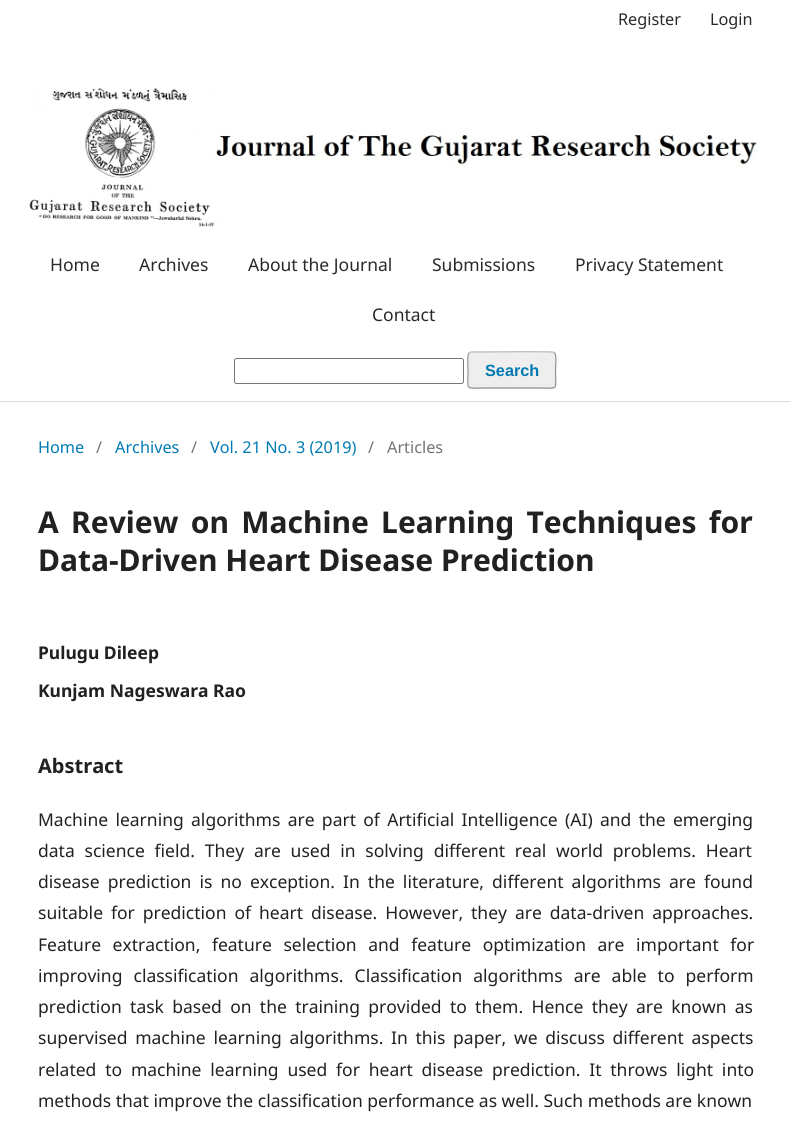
import math
import cairocffi as cairo

surface = cairo.ImageSurface(cairo.FORMAT_RGB24, 790, 1126)
cr = cairo.Context(surface)
options = cairo.FontOptions()
options.set_hint_metrics(cairo.HINT_METRICS_OFF)
options.set_hint_style(cairo.HINT_STYLE_NONE)
cr.set_font_options(options)
cr.set_miter_limit(4)


def use_color(code):
    cr.set_source_rgb(*(v / 255 for v in bytes.fromhex(code[-6:])))


def spaced_text(x, y, s, letter, word):
    cr.move_to(x, y)
    for ch in s:
        cr.show_text(ch)
        cr.rel_move_to(letter + word * (ch == ' '), 0)


def round_rect(x, y, w, h, r):
    cr.new_sub_path()
    for i, (u, v) in enumerate([(x + w - r, y + h - r), (x + r, y + h - r), (x + r, y + r), (x + w - r, y + r)]):
        cr.arc(u, v, r, i * math.pi / 2, (i + 1) * math.pi / 2)
    cr.close_path()


def picture(path, x, y, w, h):
    cr.save()
    cr.set_source_surface(cairo.ImageSurface.create_from_png(path), x, y)
    cr.rectangle(x, y, w, h)
    cr.fill()
    cr.restore()


use_color("#ffffff")
cr.paint()
use_color("#dddddd")
cr.rectangle(0, 401, 790, 1)
cr.fill()
cr.select_font_face("Noto Sans")
cr.set_font_size(16.25)
use_color("#292929")
cr.move_to(618, 25)
cr.show_text("Register")
cr.move_to(710, 25)
cr.show_text("Login")
picture("img1.png", 26, 88, 731, 139)
cr.set_font_size(17.5)
cr.move_to(50, 271)
cr.show_text("Home")
cr.move_to(139, 271)
cr.show_text("Archives")
cr.move_to(248, 271)
cr.show_text("About the Journal")
cr.move_to(432, 271)
cr.show_text("Submissions")
cr.move_to(575, 271)
cr.show_text("Privacy Statement")
cr.move_to(372, 321)
cr.show_text("Contact")
round_rect(234.5, 358.5, 229, 25, 2)
use_color("#767676")
cr.set_line_width(1)
cr.stroke()
use_color("#eeeeee")
round_rect(468, 351, 88, 38, 4)
cr.fill()
cr.new_path()
cr.move_to(469, 353)
cr.line_to(471, 352)
cr.line_to(485, 352)
cr.curve_to(492.5, 352, 552.5, 351, 554.5, 352.5)
cr.line_to(554.5, 353)
use_color("#bbbbbb")
cr.set_line_width(1.2)
cr.stroke()
cr.new_path()
cr.move_to(554.5, 353)
cr.curve_to(557, 355, 555.5, 367, 555.5, 370)
cr.curve_to(555.5, 391, 559.5, 388, 539, 388)
cr.line_to(485, 388)
cr.curve_to(464, 388, 468, 391, 468, 370)
cr.curve_to(468, 367, 467, 355, 469, 353)
cr.set_source_rgba(0, 0, 0, 0.4)
cr.stroke()
cr.select_font_face("Liberation Sans", cairo.FONT_SLANT_NORMAL, cairo.FONT_WEIGHT_BOLD)
cr.set_font_size(16.25)
use_color("#007ab2")
cr.move_to(485, 376)
cr.show_text("Search")
cr.select_font_face("Noto Sans")
cr.move_to(38, 453)
cr.show_text("Home")
use_color("#757575")
cr.move_to(96, 453)
cr.show_text("/")
use_color("#007ab2")
cr.move_to(115, 453)
cr.show_text("Archives")
use_color("#757575")
cr.move_to(191, 453)
cr.show_text("/")
use_color("#007ab2")
cr.move_to(210, 453)
cr.show_text("Vol. 21 No. 3 (2019)")
use_color("#757575")
cr.move_to(368, 453)
cr.show_text("/")
cr.move_to(387, 453)
cr.show_text("Articles")
cr.select_font_face("Noto Sans", cairo.FONT_SLANT_NORMAL, cairo.FONT_WEIGHT_BOLD)
cr.set_font_size(30)
use_color("#212121")
spaced_text(38, 533, "A Review on Machine Learning Techniques for", 0, 4.5)
cr.move_to(38, 571)
cr.show_text("Data-Driven Heart Disease Prediction")
cr.set_font_size(17.5)
cr.move_to(38, 659)
cr.show_text("Pulugu Dileep")
cr.move_to(38, 697)
cr.show_text("Kunjam Nageswara Rao")
cr.set_font_size(20)
cr.move_to(38, 773)
cr.show_text("Abstract")
cr.select_font_face("Noto Sans")
cr.set_font_size(17.5)
spaced_text(38, 826, "Machine learning algorithms are part of Artificial Intelligence (AI) and the emerging", 0, 2.75)
spaced_text(38, 857, "data science field. They are used in solving different real world problems. Heart", 0, 5.25)
spaced_text(38, 888, "disease prediction is no exception. In the literature, different algorithms are found", 0, 3.5)
spaced_text(38, 919, "suitable for prediction of heart disease. However, they are data-driven approaches.", 0, 3.4)
spaced_text(38, 951, "Feature extraction, feature selection and feature optimization are important for", 0, 7)
spaced_text(38, 982, "improving classification algorithms. Classification algorithms are able to perform", 0, 6.5)
spaced_text(38, 1013, "prediction task based on the training provided to them. Hence they are known as", 0, 3.75)
spaced_text(38, 1044, "supervised machine learning algorithms. In this paper, we discuss different aspects", 0, 3.1)
spaced_text(38, 1076, "related to machine learning used for heart disease prediction. It throws light into", 0, 4.25)
cr.move_to(38, 1107)
cr.show_text("methods that improve the classification performance as well. Such methods are known")
surface.write_to_png("result.png")
